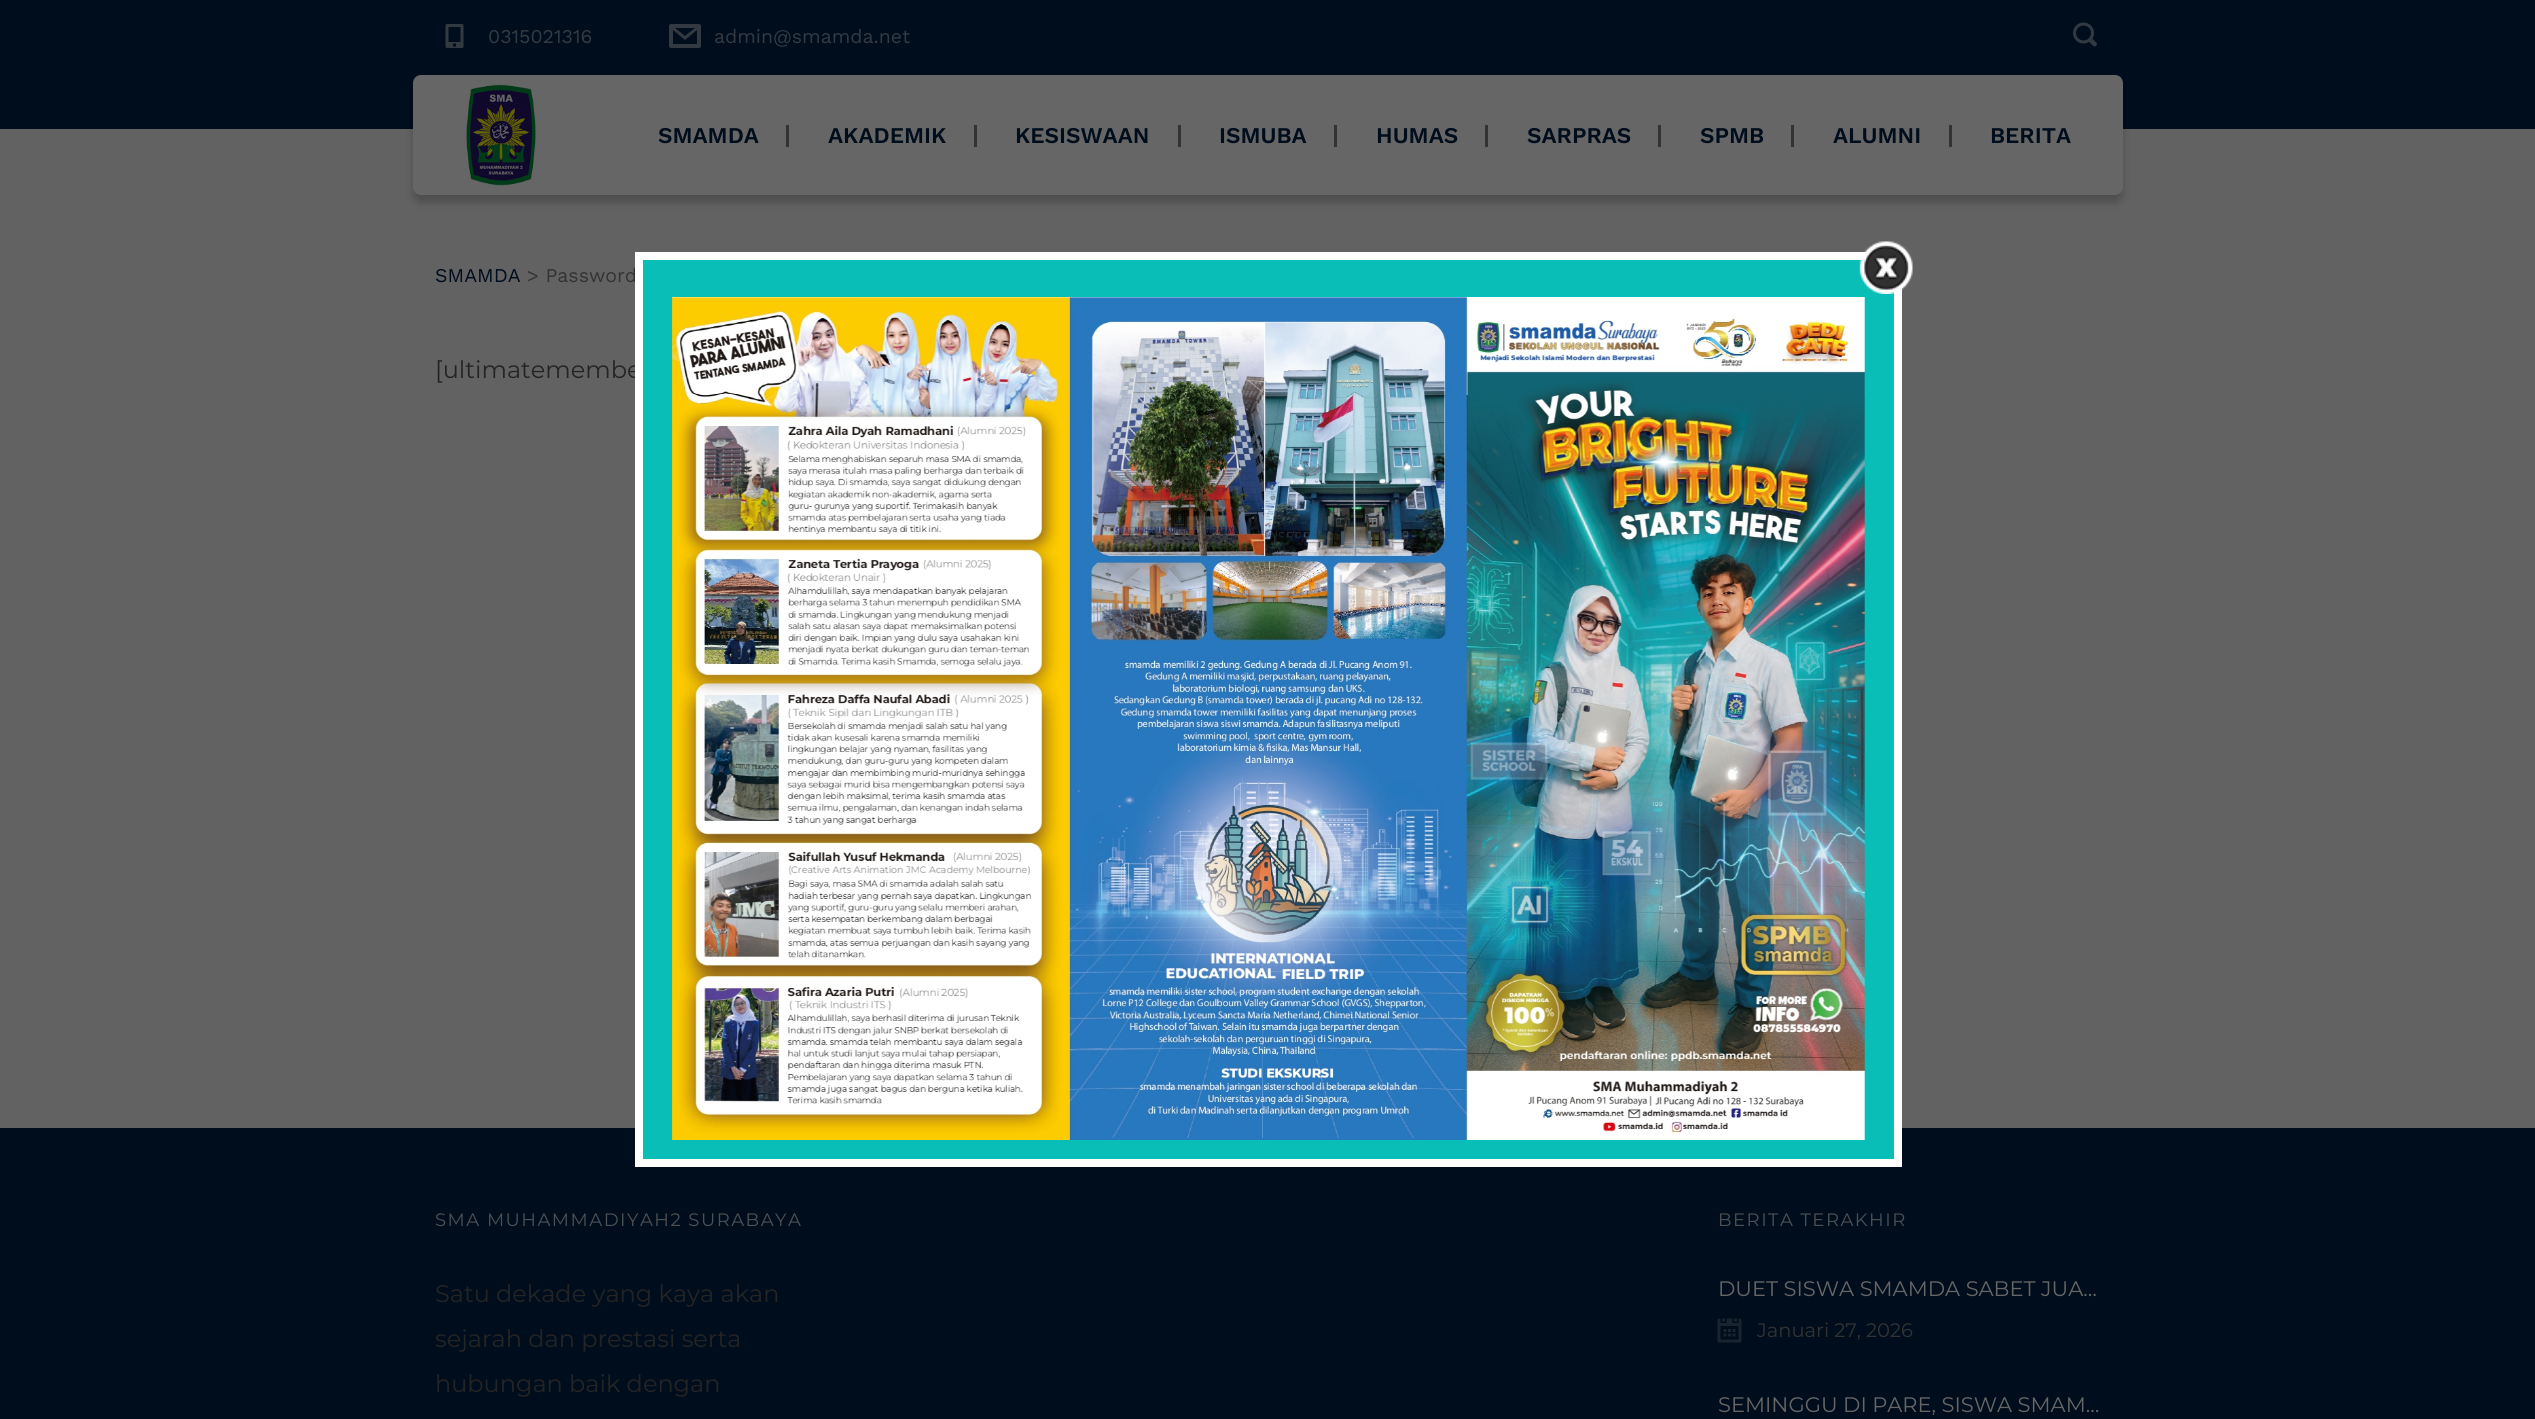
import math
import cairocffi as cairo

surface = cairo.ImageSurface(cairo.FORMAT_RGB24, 2535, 1419)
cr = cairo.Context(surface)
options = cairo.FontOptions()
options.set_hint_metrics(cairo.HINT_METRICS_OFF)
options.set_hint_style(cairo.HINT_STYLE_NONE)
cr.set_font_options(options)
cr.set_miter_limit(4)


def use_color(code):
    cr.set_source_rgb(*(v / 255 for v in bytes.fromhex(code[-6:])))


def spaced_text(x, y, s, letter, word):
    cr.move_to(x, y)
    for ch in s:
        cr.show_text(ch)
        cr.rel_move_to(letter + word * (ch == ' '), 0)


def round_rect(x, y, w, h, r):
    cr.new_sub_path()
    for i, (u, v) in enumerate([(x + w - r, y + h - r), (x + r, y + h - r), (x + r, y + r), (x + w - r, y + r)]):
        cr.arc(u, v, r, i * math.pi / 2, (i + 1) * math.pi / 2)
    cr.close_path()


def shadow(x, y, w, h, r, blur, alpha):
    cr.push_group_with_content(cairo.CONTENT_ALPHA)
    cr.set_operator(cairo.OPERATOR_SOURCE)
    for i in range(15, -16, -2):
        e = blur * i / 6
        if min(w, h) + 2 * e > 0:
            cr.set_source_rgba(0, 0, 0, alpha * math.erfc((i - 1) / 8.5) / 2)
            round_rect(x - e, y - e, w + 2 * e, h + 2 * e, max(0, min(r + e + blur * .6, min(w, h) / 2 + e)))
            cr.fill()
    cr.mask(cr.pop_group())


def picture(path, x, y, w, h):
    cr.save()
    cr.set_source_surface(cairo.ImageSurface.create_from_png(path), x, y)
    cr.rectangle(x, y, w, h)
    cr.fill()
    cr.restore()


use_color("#626262")
cr.paint()
use_color("#000d1c")
cr.rectangle(0, 0, 2535, 129)
cr.fill()
picture("img1.png", 445, 24, 19, 24)
cr.select_font_face("Work Sans")
cr.set_font_size(19.5)
use_color("#333a41")
cr.move_to(488, 43)
cr.show_text("0315021316")
picture("img2.png", 669, 24, 32, 24)
cr.move_to(714, 43)
cr.show_text("admin@smamda.net")
picture("img3.png", 2073, 22, 24, 25)
use_color("#000000")
shadow(413, 83, 1710, 120, 8, 4, 0.2)
use_color("#666666")
round_rect(413, 75, 1710, 120, 8)
cr.fill()
picture("img4.png", 466, 84, 70, 102)
cr.select_font_face("Work Sans SemiBold")
cr.set_font_size(22.5)
use_color("#000d1c")
cr.move_to(658, 143)
cr.show_text("SMAMDA")
use_color("#333333")
cr.rectangle(786, 125, 3, 22)
cr.fill()
use_color("#000d1c")
cr.move_to(828, 143)
cr.show_text("AKADEMIK")
use_color("#333333")
cr.rectangle(974, 125, 3, 22)
cr.fill()
use_color("#000d1c")
cr.move_to(1015, 143)
cr.show_text("KESISWAAN")
use_color("#333333")
cr.rectangle(1178, 125, 3, 22)
cr.fill()
use_color("#000d1c")
cr.move_to(1219, 143)
cr.show_text("ISMUBA")
use_color("#333333")
cr.rectangle(1334, 125, 3, 22)
cr.fill()
use_color("#000d1c")
cr.move_to(1376, 143)
cr.show_text("HUMAS")
use_color("#333333")
cr.rectangle(1485, 125, 3, 22)
cr.fill()
use_color("#000d1c")
cr.move_to(1527, 143)
cr.show_text("SARPRAS")
use_color("#333333")
cr.rectangle(1658, 125, 3, 22)
cr.fill()
use_color("#000d1c")
cr.move_to(1700, 143)
cr.show_text("SPMB")
use_color("#333333")
cr.rectangle(1791, 125, 3, 22)
cr.fill()
use_color("#000d1c")
cr.move_to(1833, 143)
cr.show_text("ALUMNI")
use_color("#333333")
cr.rectangle(1949, 125, 3, 22)
cr.fill()
use_color("#000d1c")
cr.move_to(1990, 143)
cr.show_text("BERITA")
cr.select_font_face("Work Sans")
cr.set_font_size(19.5)
cr.move_to(435, 282)
cr.show_text("SMAMDA")
use_color("#333333")
cr.move_to(527, 282)
cr.show_text("> Password")
cr.select_font_face("Montserrat")
cr.set_font_size(24)
use_color("#242424")
cr.move_to(435, 378)
cr.show_text("[ultimatemembe")
use_color("#000d1c")
cr.rectangle(0, 1128, 2535, 291)
cr.fill()
cr.set_font_size(18)
use_color("#4c5054")
spaced_text(435, 1226, "SMA MUHAMMADIYAH2 SURABAYA", 1.5, 0)
cr.set_font_size(24)
use_color("#242424")
cr.move_to(435, 1302)
cr.show_text("Satu dekade yang kaya akan")
cr.move_to(435, 1347)
cr.show_text("sejarah dan prestasi serta")
cr.move_to(435, 1392)
cr.show_text("hubungan baik dengan")
cr.set_font_size(18)
use_color("#4c5054")
spaced_text(1718, 1226, "BERITA TERAKHIR", 1.5, 0)
cr.set_font_size(21)
use_color("#666666")
cr.move_to(1718, 1296)
cr.show_text("DUET SISWA SMAMDA SABET JUA…")
picture("img5.png", 1717, 1318, 25, 25)
cr.set_font_size(19.5)
use_color("#333333")
cr.move_to(1757, 1337)
cr.show_text("Januari 27, 2026")
cr.set_font_size(21)
use_color("#666666")
cr.move_to(1718, 1412)
cr.show_text("SEMINGGU DI PARE, SISWA SMAM…")
use_color("#08beb6")
cr.rectangle(639, 256, 1259, 907)
cr.fill_preserve()
use_color("#ffffff")
cr.set_line_width(8)
cr.stroke()
picture("img6.png", 1859, 241, 54, 53)
picture("img7.png", 672, 297, 1193, 843)
surface.write_to_png("result.png")
